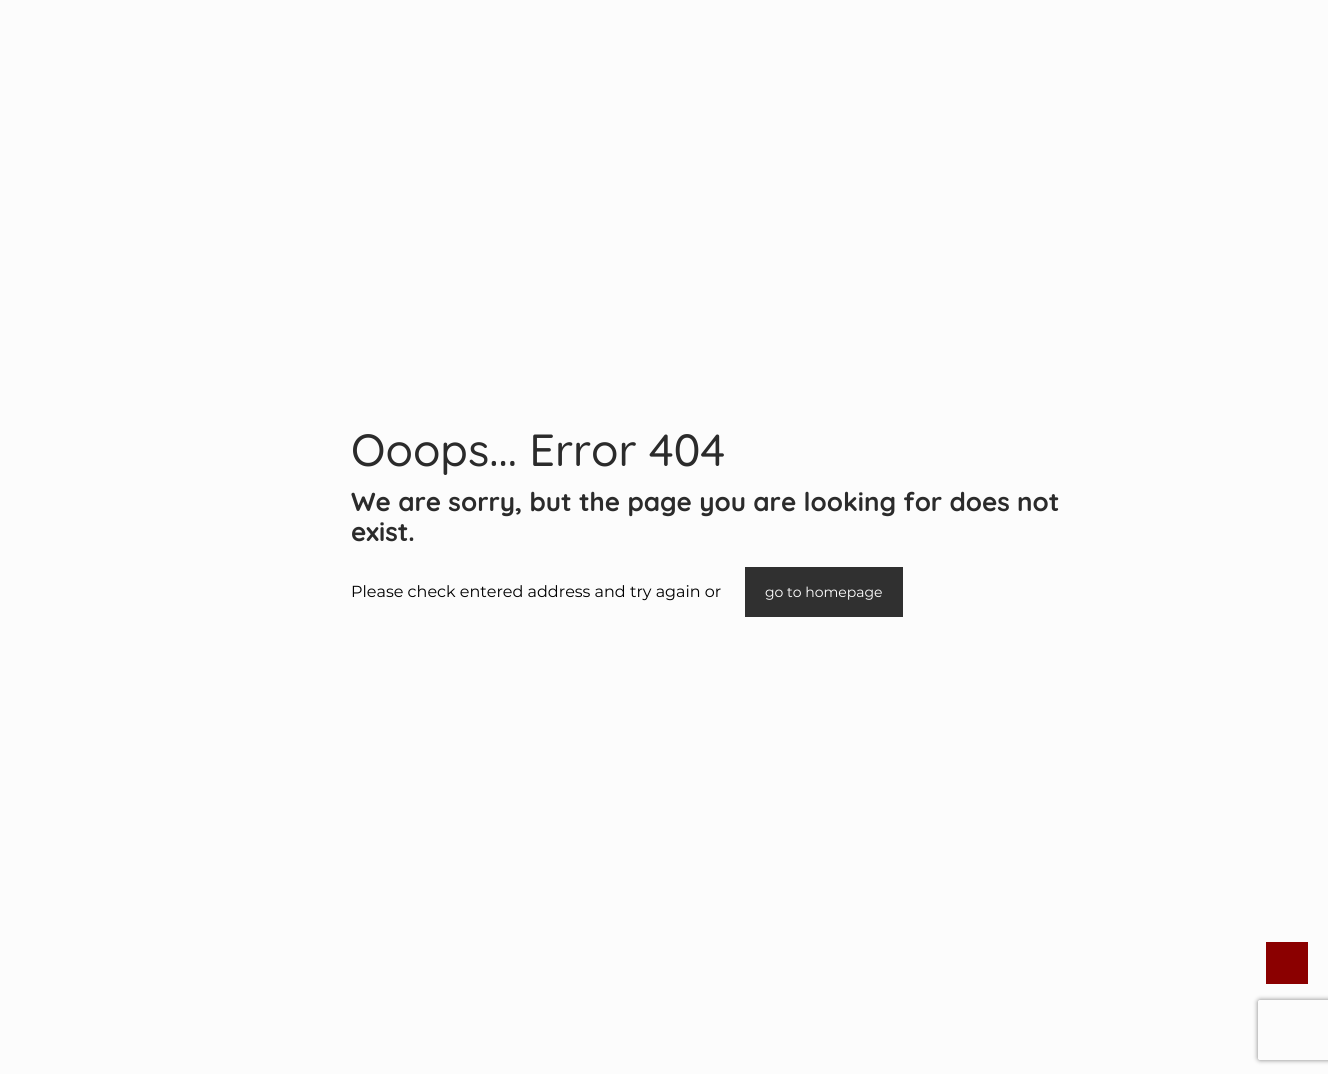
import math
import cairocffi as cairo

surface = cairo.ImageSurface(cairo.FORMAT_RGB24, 1328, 1074)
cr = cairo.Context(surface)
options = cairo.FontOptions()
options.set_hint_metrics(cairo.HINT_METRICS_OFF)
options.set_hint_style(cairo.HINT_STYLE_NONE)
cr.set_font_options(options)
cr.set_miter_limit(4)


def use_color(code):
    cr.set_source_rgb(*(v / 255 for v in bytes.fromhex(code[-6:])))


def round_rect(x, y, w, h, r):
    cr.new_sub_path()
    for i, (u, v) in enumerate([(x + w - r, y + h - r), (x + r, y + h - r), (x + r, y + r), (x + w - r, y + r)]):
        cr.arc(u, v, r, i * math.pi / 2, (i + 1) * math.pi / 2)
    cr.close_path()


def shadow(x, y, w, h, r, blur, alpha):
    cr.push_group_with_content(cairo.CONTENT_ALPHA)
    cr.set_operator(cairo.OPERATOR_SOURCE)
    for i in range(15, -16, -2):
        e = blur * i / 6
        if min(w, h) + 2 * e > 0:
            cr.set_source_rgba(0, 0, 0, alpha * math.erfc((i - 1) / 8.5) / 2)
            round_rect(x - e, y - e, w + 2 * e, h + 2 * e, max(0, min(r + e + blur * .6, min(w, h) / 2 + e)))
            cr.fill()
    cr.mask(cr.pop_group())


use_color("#fcfcfc")
cr.paint()
cr.select_font_face("Quicksand Medium")
cr.set_font_size(45)
use_color("#2b2b2b")
cr.move_to(351, 466)
cr.show_text("Ooops... Error 404")
cr.select_font_face("Quicksand", cairo.FONT_SLANT_NORMAL, cairo.FONT_WEIGHT_BOLD)
cr.set_font_size(26)
cr.move_to(351, 511)
cr.show_text("We are sorry, but the page you are looking for does not")
cr.move_to(351, 541)
cr.show_text("exist.")
cr.select_font_face("Montserrat")
cr.set_font_size(16)
use_color("#000000")
cr.move_to(351, 597)
cr.show_text("Please check entered address and try again or")
use_color("#303030")
cr.rectangle(745, 567, 158, 50)
cr.fill()
cr.set_font_size(14)
use_color("#ffffff")
cr.move_to(765, 597)
cr.show_text("go to homepage")
use_color("#8b0000")
cr.rectangle(1266, 942, 42, 42)
cr.fill()
cr.save()
cr.set_fill_rule(cairo.FILL_RULE_EVEN_ODD)
cr.new_path()
cr.move_to(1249, 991)
cr.line_to(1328, 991)
cr.line_to(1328, 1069)
cr.line_to(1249, 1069)
cr.close_path()
cr.move_to(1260, 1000)
cr.line_to(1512, 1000)
cr.curve_to(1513, 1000, 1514, 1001, 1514, 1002)
cr.line_to(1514, 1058)
cr.curve_to(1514, 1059, 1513, 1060, 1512, 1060)
cr.line_to(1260, 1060)
cr.curve_to(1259, 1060, 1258, 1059, 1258, 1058)
cr.line_to(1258, 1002)
cr.curve_to(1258, 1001, 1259, 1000, 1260, 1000)
cr.close_path()
cr.clip()
use_color("#808080")
shadow(1258, 1000, 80, 60, 2, 2.5, 1)
cr.restore()
surface.write_to_png("result.png")
